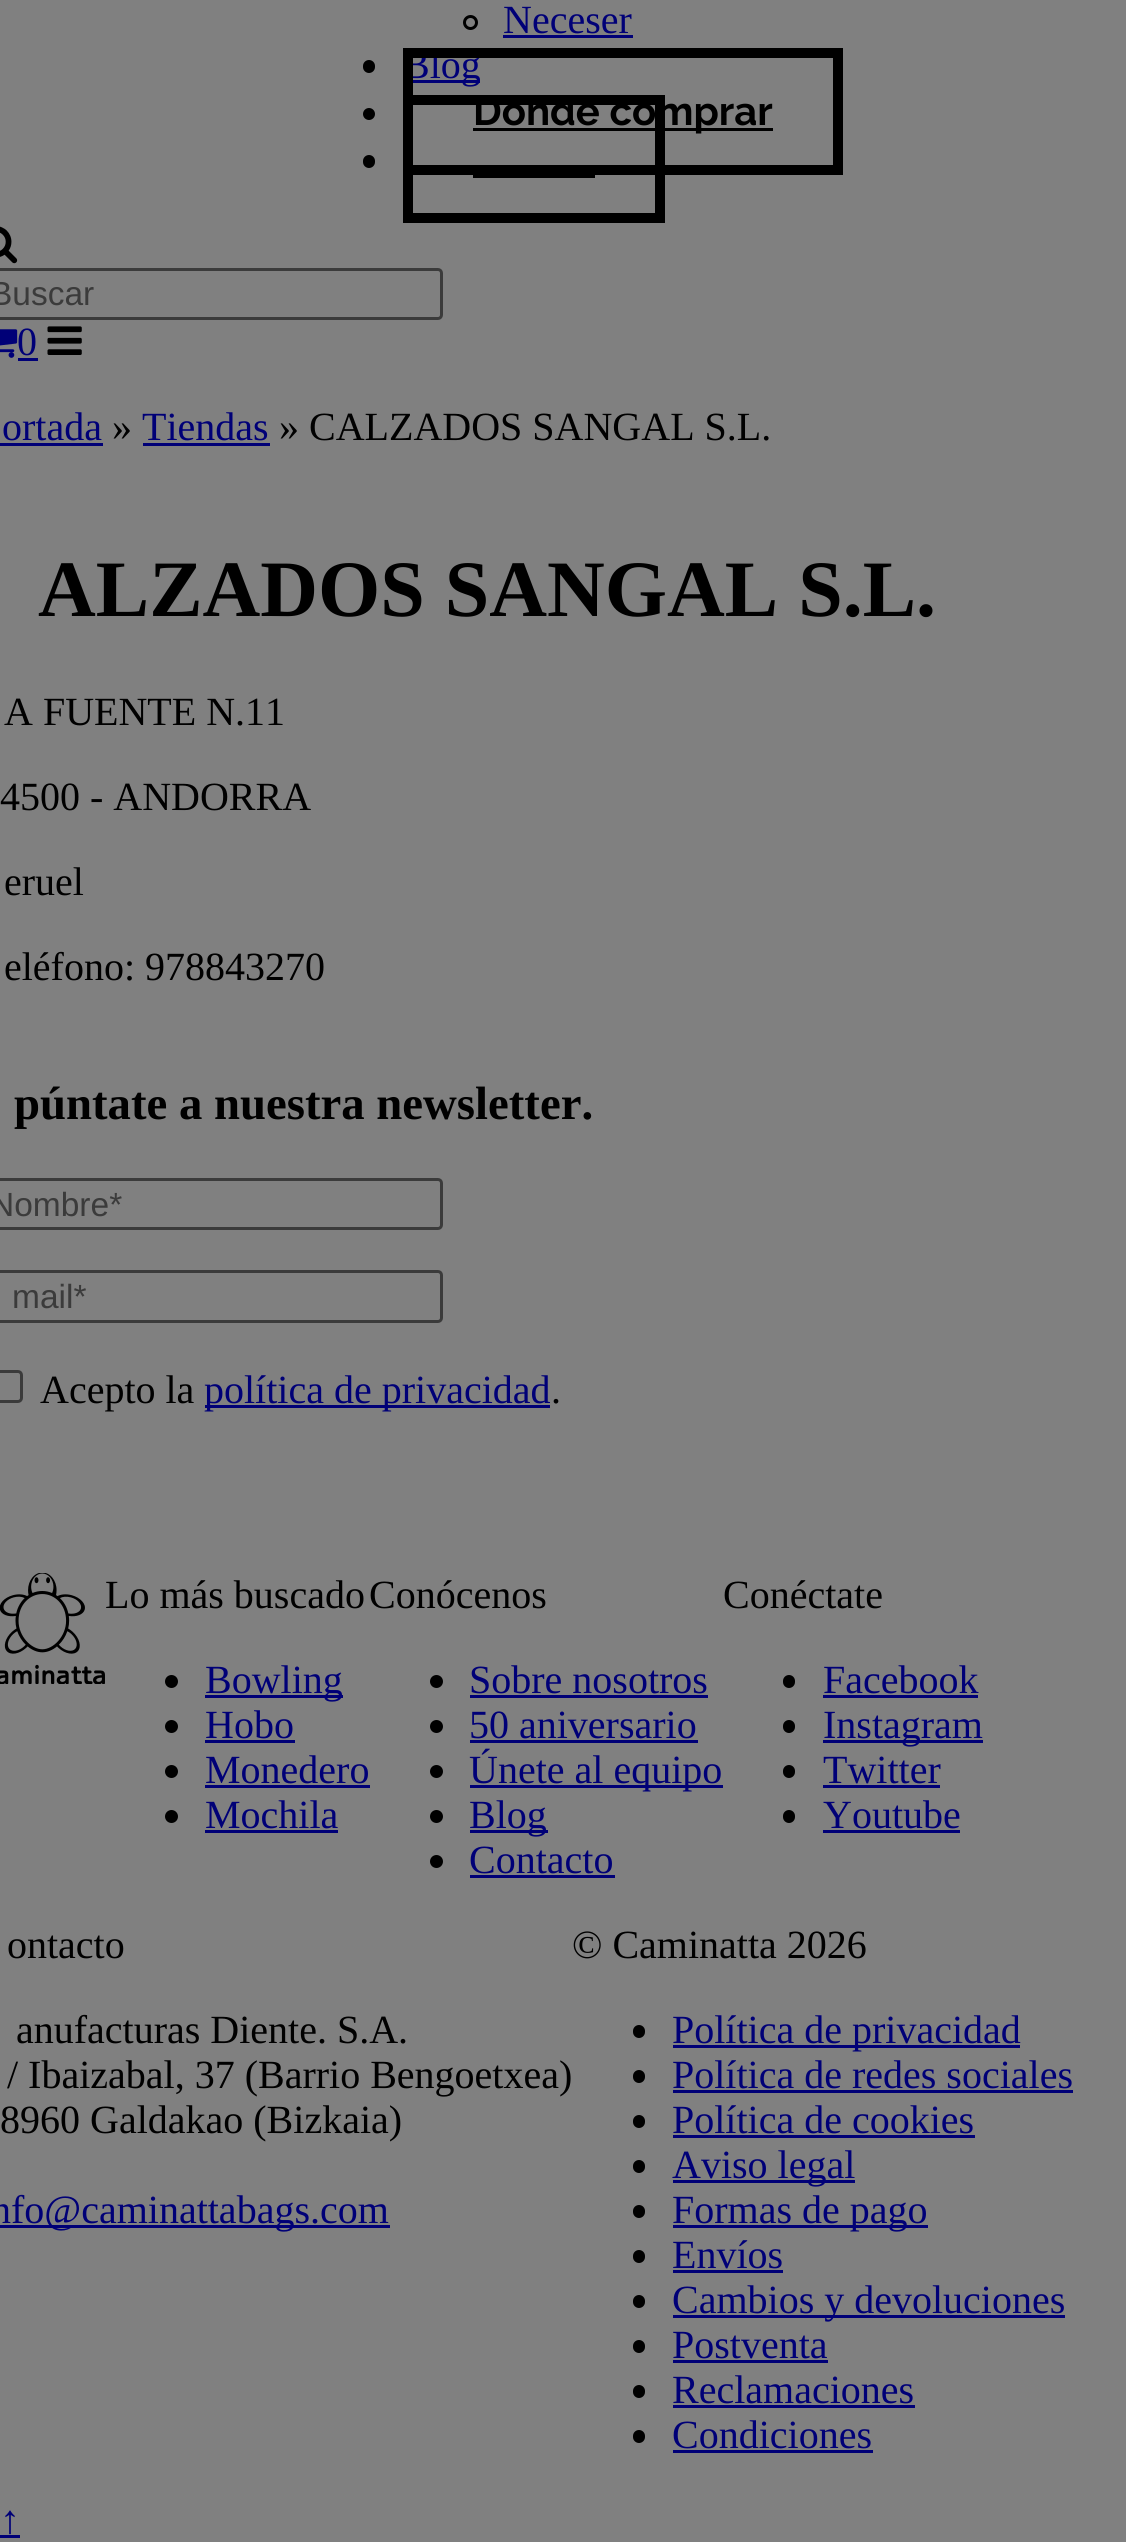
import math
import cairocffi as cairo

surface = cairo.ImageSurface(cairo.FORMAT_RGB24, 1126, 2542)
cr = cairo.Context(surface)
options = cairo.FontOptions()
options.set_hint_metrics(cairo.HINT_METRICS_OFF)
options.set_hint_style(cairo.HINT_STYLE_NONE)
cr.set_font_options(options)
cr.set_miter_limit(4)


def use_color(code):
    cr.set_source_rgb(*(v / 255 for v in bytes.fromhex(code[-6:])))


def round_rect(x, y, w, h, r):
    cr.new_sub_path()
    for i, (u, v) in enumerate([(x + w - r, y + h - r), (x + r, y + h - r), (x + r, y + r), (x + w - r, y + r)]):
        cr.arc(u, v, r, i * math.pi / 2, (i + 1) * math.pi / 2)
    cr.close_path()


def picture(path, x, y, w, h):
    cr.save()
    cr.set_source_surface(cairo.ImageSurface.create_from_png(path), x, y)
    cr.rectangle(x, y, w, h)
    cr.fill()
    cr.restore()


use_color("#808080")
cr.paint()
cr.arc(470.5, 22.5, 6, 0, 2 * math.pi)
use_color("#000000")
cr.set_line_width(3)
cr.stroke()
cr.select_font_face("Liberation Serif")
cr.set_font_size(40)
use_color("#000077")
cr.move_to(503, 33)
cr.show_text("Neceser")
cr.rectangle(503, 35, 130, 3)
cr.fill()
use_color("#000000")
round_rect(363, 60, 12, 13, 6)
cr.fill()
use_color("#000077")
cr.rectangle(413, 80, 67, 3)
cr.fill()
cr.move_to(403, 78)
cr.show_text("Blog")
use_color("#000000")
round_rect(363, 155, 12, 13, 6)
cr.fill()
cr.rectangle(408, 53, 430, 117)
cr.set_line_width(10)
cr.stroke()
cr.rectangle(473, 128, 300, 3)
cr.fill()
cr.rectangle(408, 100, 252, 118)
cr.stroke()
cr.rectangle(473, 175, 122, 3)
cr.fill()
cr.arc(369, 114, 6, 0, 2 * math.pi)
cr.fill()
cr.select_font_face("Raleway", cairo.FONT_SLANT_NORMAL, cairo.FONT_WEIGHT_BOLD)
cr.move_to(473, 125)
cr.show_text("Dónde comprar")
picture("img1.png", 0, 226, 18, 38)
round_rect(-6.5, 269.5, 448, 49, 3.5)
use_color("#3b3b3b")
cr.set_line_width(3)
cr.stroke()
cr.select_font_face("Liberation Sans")
cr.set_font_size(33.5)
cr.move_to(-10, 305)
cr.show_text("Buscar")
picture("img2.png", 0, 329, 18, 29)
cr.select_font_face("Liberation Serif")
cr.set_font_size(40)
use_color("#000077")
cr.move_to(17, 355)
cr.show_text("0")
cr.rectangle(18, 358, 20, 3)
cr.fill()
picture("img3.png", 47, 326, 35, 29)
cr.move_to(2, 440)
cr.show_text("ortada")
cr.rectangle(0, 443, 103, 3)
cr.fill()
use_color("#000000")
cr.move_to(112, 440)
cr.show_text("»")
use_color("#000077")
cr.move_to(142, 440)
cr.show_text("Tiendas")
cr.rectangle(143, 443, 127, 3)
cr.fill()
use_color("#000000")
cr.move_to(279, 440)
cr.show_text("» CALZADOS SANGAL S.L.")
cr.select_font_face("Liberation Serif", cairo.FONT_SLANT_NORMAL, cairo.FONT_WEIGHT_BOLD)
cr.set_font_size(80)
cr.move_to(38, 616)
cr.show_text("ALZADOS SANGAL S.L.")
cr.select_font_face("Liberation Serif")
cr.set_font_size(40)
cr.move_to(4, 725)
cr.show_text("A FUENTE N.11")
cr.move_to(0, 810)
cr.show_text("4500 - ANDORRA")
cr.move_to(4, 895)
cr.show_text("eruel")
cr.move_to(4, 980)
cr.show_text("eléfono: 978843270")
cr.select_font_face("Liberation Serif", cairo.FONT_SLANT_NORMAL, cairo.FONT_WEIGHT_BOLD)
cr.set_font_size(46.75)
cr.move_to(14, 1119)
cr.show_text("púntate a nuestra newsletter.")
round_rect(-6.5, 1179.5, 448, 49, 3.5)
use_color("#3b3b3b")
cr.stroke()
cr.select_font_face("Liberation Sans")
cr.set_font_size(33.5)
cr.move_to(-10, 1216)
cr.show_text("Nombre*")
round_rect(-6.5, 1271.5, 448, 50, 3.5)
cr.stroke()
cr.move_to(12, 1308)
cr.show_text("mail*")
round_rect(-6.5, 1371.5, 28, 30, 3.5)
cr.stroke()
cr.select_font_face("Liberation Serif")
cr.set_font_size(40)
use_color("#000000")
cr.move_to(40, 1403)
cr.show_text("Acepto la")
use_color("#000077")
cr.rectangle(205, 1405, 345, 3)
cr.fill()
cr.move_to(204, 1403)
cr.show_text("política de privacidad")
use_color("#000000")
cr.move_to(551, 1403)
cr.show_text(".")
picture("img4.png", 0, 1573, 105, 111)
cr.move_to(105, 1608)
cr.show_text("Lo más buscado")
cr.new_path()
cr.arc(171.5, 1681.5, 6.5, 0, 2 * math.pi)
cr.fill()
use_color("#000077")
cr.rectangle(205, 1695, 138, 3)
cr.fill()
cr.move_to(205, 1693)
cr.show_text("Bowling")
use_color("#000000")
cr.new_path()
cr.arc(171.5, 1726.5, 6.5, 0, 2 * math.pi)
cr.fill()
use_color("#000077")
cr.move_to(205, 1738)
cr.show_text("Hobo")
cr.rectangle(205, 1740, 90, 3)
cr.fill()
use_color("#000000")
cr.arc(171.5, 1771.5, 6.5, 0, 2 * math.pi)
cr.fill()
use_color("#000077")
cr.move_to(205, 1783)
cr.show_text("Monedero")
cr.rectangle(205, 1785, 165, 3)
cr.fill()
use_color("#000000")
cr.arc(171.5, 1816.5, 6.5, 0, 2 * math.pi)
cr.fill()
use_color("#000077")
cr.move_to(205, 1828)
cr.show_text("Mochila")
cr.rectangle(205, 1830, 133, 3)
cr.fill()
use_color("#000000")
cr.move_to(369, 1608)
cr.show_text("Conócenos")
cr.new_path()
cr.arc(436.5, 1681.5, 6.5, 0, 2 * math.pi)
cr.fill()
use_color("#000077")
cr.move_to(469, 1693)
cr.show_text("Sobre nosotros")
cr.rectangle(470, 1695, 238, 3)
cr.fill()
use_color("#000000")
cr.arc(436.5, 1726.5, 6.5, 0, 2 * math.pi)
cr.fill()
use_color("#000077")
cr.move_to(469, 1738)
cr.show_text("50 aniversario")
cr.rectangle(470, 1740, 228, 3)
cr.fill()
use_color("#000000")
cr.arc(436.5, 1771.5, 6.5, 0, 2 * math.pi)
cr.fill()
use_color("#000077")
cr.rectangle(470, 1785, 253, 3)
cr.fill()
cr.move_to(469, 1783)
cr.show_text("Únete al equipo")
use_color("#000000")
cr.new_path()
cr.arc(436.5, 1816.5, 6.5, 0, 2 * math.pi)
cr.fill()
use_color("#000077")
cr.rectangle(470, 1830, 78, 3)
cr.fill()
cr.move_to(469, 1828)
cr.show_text("Blog")
use_color("#000000")
cr.new_path()
cr.arc(436.5, 1861.5, 6.5, 0, 2 * math.pi)
cr.fill()
use_color("#000077")
cr.move_to(469, 1873)
cr.show_text("Contacto")
cr.rectangle(470, 1875, 145, 3)
cr.fill()
use_color("#000000")
cr.move_to(723, 1608)
cr.show_text("Conéctate")
round_rect(783, 1675, 12, 13, 6)
cr.fill()
use_color("#000077")
cr.move_to(823, 1693)
cr.show_text("Facebook")
cr.rectangle(823, 1695, 155, 3)
cr.fill()
use_color("#000000")
round_rect(783, 1720, 12, 13, 6)
cr.fill()
use_color("#000077")
cr.rectangle(823, 1740, 160, 3)
cr.fill()
cr.move_to(823, 1738)
cr.show_text("Instagram")
use_color("#000000")
round_rect(783, 1765, 12, 13, 6)
cr.fill()
use_color("#000077")
cr.move_to(823, 1783)
cr.show_text("Twitter")
cr.rectangle(823, 1785, 117, 3)
cr.fill()
use_color("#000000")
round_rect(783, 1810, 12, 13, 6)
cr.fill()
use_color("#000077")
cr.move_to(823, 1828)
cr.show_text("Youtube")
cr.rectangle(823, 1830, 137, 3)
cr.fill()
use_color("#000000")
cr.move_to(7, 1958)
cr.show_text("ontacto")
cr.move_to(16, 2043)
cr.show_text("anufacturas Diente. S.A.")
cr.move_to(7, 2088)
cr.show_text("/ Ibaizabal, 37 (Barrio Bengoetxea)")
cr.move_to(0, 2133)
cr.show_text("8960 Galdakao (Bizkaia)")
use_color("#000077")
cr.rectangle(0, 2225, 390, 3)
cr.fill()
cr.move_to(-9, 2223)
cr.show_text("nfo@caminattabags.com")
use_color("#000000")
cr.move_to(572, 1958)
cr.show_text("© Caminatta 2026")
round_rect(633, 2025, 12, 13, 6)
cr.fill()
use_color("#000077")
cr.rectangle(673, 2045, 347, 3)
cr.fill()
cr.move_to(672, 2043)
cr.show_text("Política de privacidad")
use_color("#000000")
round_rect(633, 2070, 12, 13, 6)
cr.fill()
use_color("#000077")
cr.move_to(672, 2088)
cr.show_text("Política de redes sociales")
cr.rectangle(673, 2090, 400, 3)
cr.fill()
use_color("#000000")
round_rect(633, 2115, 12, 13, 6)
cr.fill()
use_color("#000077")
cr.move_to(672, 2133)
cr.show_text("Política de cookies")
cr.rectangle(673, 2135, 302, 3)
cr.fill()
use_color("#000000")
round_rect(633, 2160, 12, 13, 6)
cr.fill()
use_color("#000077")
cr.rectangle(673, 2180, 182, 3)
cr.fill()
cr.move_to(672, 2178)
cr.show_text("Aviso legal")
use_color("#000000")
round_rect(633, 2205, 12, 13, 6)
cr.fill()
use_color("#000077")
cr.rectangle(673, 2225, 255, 3)
cr.fill()
cr.move_to(672, 2223)
cr.show_text("Formas de pago")
use_color("#000000")
round_rect(633, 2250, 12, 13, 6)
cr.fill()
use_color("#000077")
cr.move_to(672, 2268)
cr.show_text("Envíos")
cr.rectangle(673, 2270, 110, 3)
cr.fill()
use_color("#000000")
round_rect(633, 2295, 12, 13, 6)
cr.fill()
use_color("#000077")
cr.rectangle(673, 2315, 392, 3)
cr.fill()
cr.move_to(672, 2313)
cr.show_text("Cambios y devoluciones")
use_color("#000000")
round_rect(633, 2340, 12, 13, 6)
cr.fill()
use_color("#000077")
cr.move_to(672, 2358)
cr.show_text("Postventa")
cr.rectangle(673, 2360, 155, 3)
cr.fill()
use_color("#000000")
round_rect(633, 2385, 12, 13, 6)
cr.fill()
use_color("#000077")
cr.move_to(672, 2403)
cr.show_text("Reclamaciones")
cr.rectangle(673, 2405, 242, 3)
cr.fill()
use_color("#000000")
round_rect(633, 2430, 12, 13, 6)
cr.fill()
use_color("#000077")
cr.move_to(672, 2448)
cr.show_text("Condiciones")
cr.rectangle(673, 2450, 200, 3)
cr.fill()
cr.move_to(0, 2533)
cr.show_text("↑")
cr.rectangle(0, 2535, 20, 3)
cr.fill()
surface.write_to_png("result.png")
